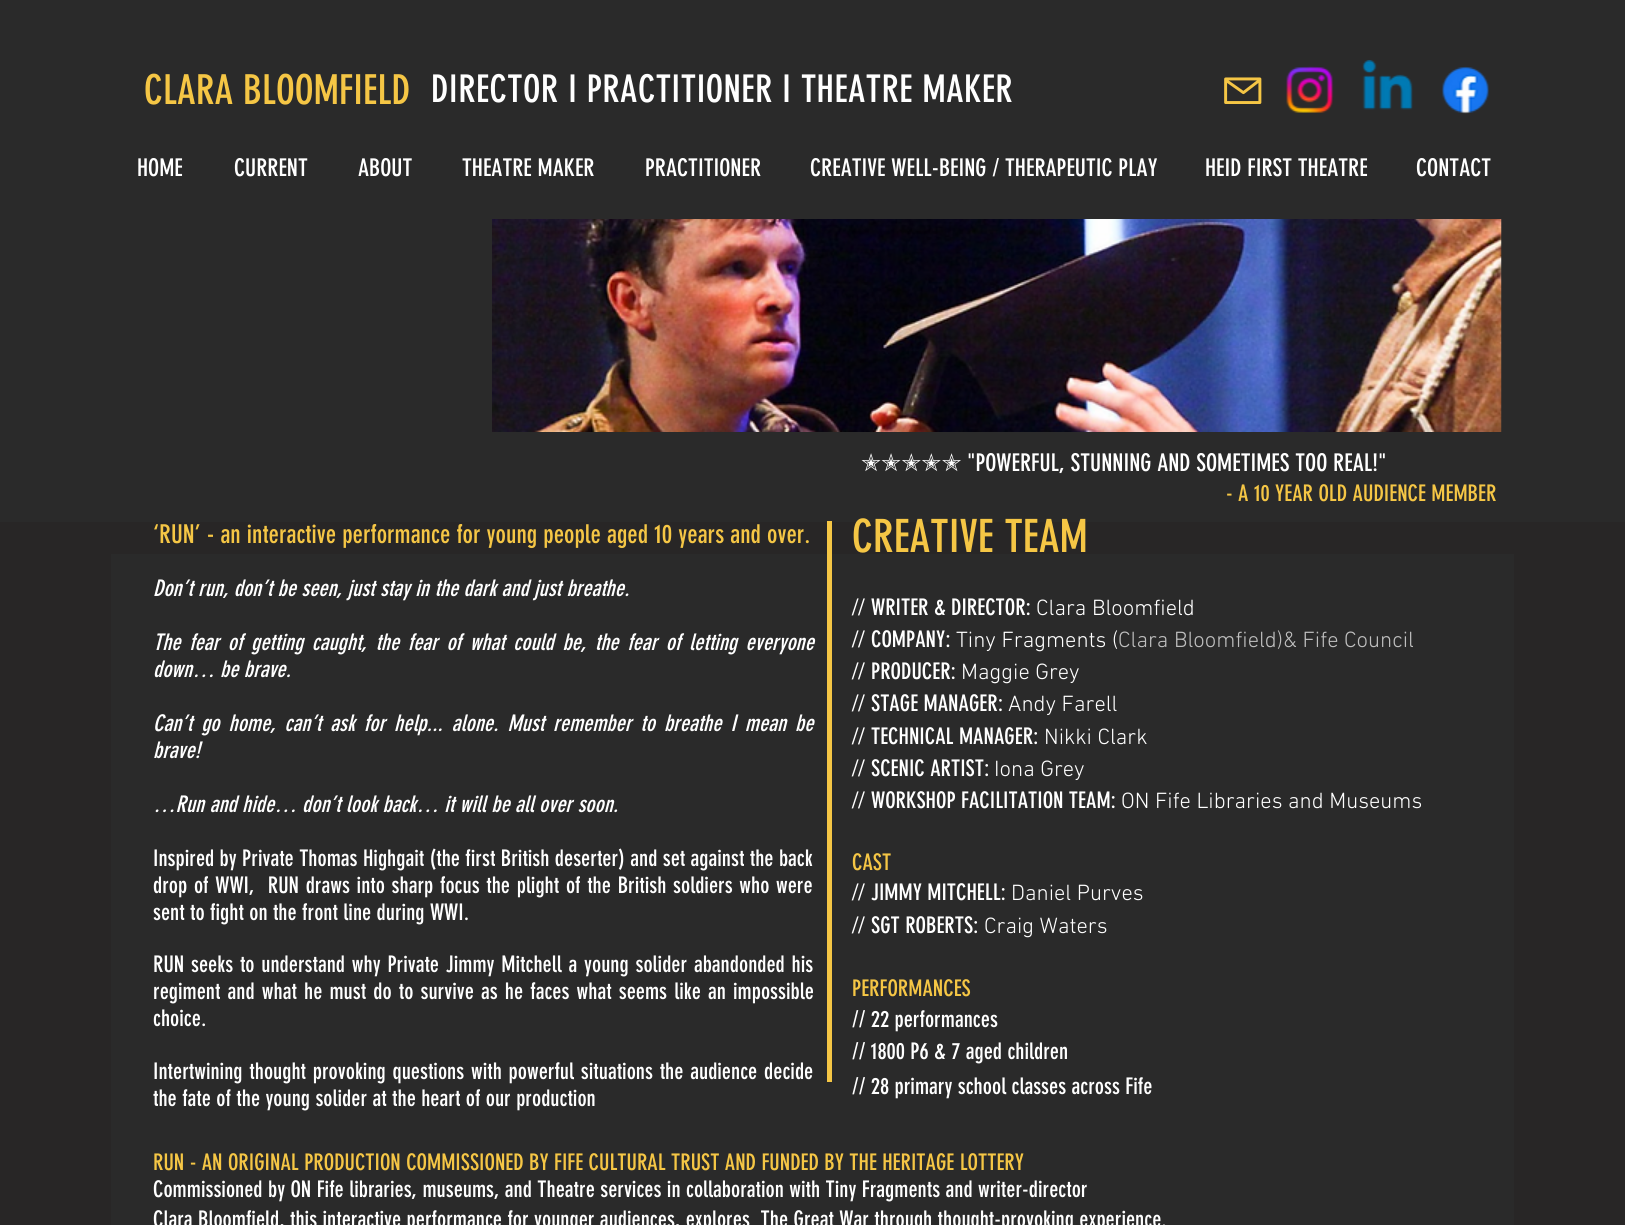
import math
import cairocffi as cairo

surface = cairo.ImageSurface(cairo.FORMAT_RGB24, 1625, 1225)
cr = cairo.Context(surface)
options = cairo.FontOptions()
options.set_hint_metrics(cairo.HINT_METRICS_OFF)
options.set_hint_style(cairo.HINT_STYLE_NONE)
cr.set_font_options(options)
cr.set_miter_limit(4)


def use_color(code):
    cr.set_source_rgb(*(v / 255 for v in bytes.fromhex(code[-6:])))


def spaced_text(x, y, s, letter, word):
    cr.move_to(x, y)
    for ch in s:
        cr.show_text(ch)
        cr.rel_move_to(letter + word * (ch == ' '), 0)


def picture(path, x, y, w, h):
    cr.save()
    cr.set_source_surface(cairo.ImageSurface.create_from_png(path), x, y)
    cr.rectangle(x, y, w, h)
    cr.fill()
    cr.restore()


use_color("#2a2a2a")
cr.paint()
cr.select_font_face("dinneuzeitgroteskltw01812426")
cr.set_font_size(40.5)
use_color("#f5c645")
cr.move_to(144, 104)
cr.show_text("CLARA BLOOMFIELD")
cr.set_font_size(37.5)
use_color("#ffffff")
spaced_text(431, 102, "DIRECTOR I PRACTITIONER I THEATRE MAKER", 0.4, 0)
picture("img1.png", 1224, 77, 38, 27)
picture("img2.png", 1286, 66, 48, 47)
picture("img3.png", 1362, 60, 51, 50)
picture("img4.png", 1441, 66, 48, 48)
cr.set_font_size(24)
cr.move_to(137, 176)
cr.show_text("HOME")
cr.move_to(234, 176)
cr.show_text("CURRENT")
cr.move_to(358, 176)
cr.show_text("ABOUT")
cr.move_to(462, 176)
cr.show_text("THEATRE MAKER")
cr.move_to(645, 176)
cr.show_text("PRACTITIONER")
cr.move_to(810, 176)
cr.show_text("CREATIVE WELL-BEING / THERAPEUTIC PLAY")
cr.move_to(1205, 176)
cr.show_text("HEID FIRST THEATRE")
cr.move_to(1416, 176)
cr.show_text("CONTACT")
picture("img5.png", 492, 219, 1010, 213)
cr.select_font_face("DejaVu Sans")
cr.move_to(861, 471)
cr.show_text("✭✭✭✭✭")
cr.select_font_face("dinneuzeitgroteskltw01812426")
cr.move_to(967, 471)
cr.show_text("\"POWERFUL, STUNNING AND SOMETIMES TOO REAL!\"")
cr.set_font_size(22.5)
use_color("#f5c645")
cr.move_to(1226, 501)
cr.show_text("- A 10 YEAR OLD AUDIENCE MEMBER")
use_color("#282626")
cr.rectangle(0, 522, 1625, 703)
cr.fill()
cr.set_font_size(25.5)
use_color("#f5c645")
cr.move_to(153, 543)
cr.show_text("‘RUN’ - an interactive performance for young people aged 10 years and over.")
use_color("#2a2a2a")
cr.rectangle(111, 554, 1403, 671)
cr.fill()
cr.select_font_face("dinneuzeitgroteskltw01812426", cairo.FONT_SLANT_ITALIC)
cr.set_font_size(22.5)
use_color("#ffffff")
cr.move_to(153, 596)
cr.show_text("Don’t run, don’t be seen, just stay in the dark and just breathe.")
spaced_text(153, 650, "The fear of getting caught, the fear of what could be, the fear of letting everyone", 0, 3.25)
cr.move_to(153, 677)
cr.show_text("down… be brave.")
spaced_text(153, 731, "Can’t go home, can’t ask for help... alone. Must remember to breathe I mean be", 0, 3.6)
cr.move_to(153, 758)
cr.show_text("brave!")
cr.move_to(153, 812)
cr.show_text("…Run and hide… don’t look back… it will be all over soon.")
cr.select_font_face("dinneuzeitgroteskltw01812426")
cr.move_to(153, 866)
cr.show_text("Inspired by Private Thomas Highgait (the first British deserter) and set against the back")
spaced_text(153, 893, "drop of WWI,  RUN draws into sharp focus the plight of the British soldiers who were", 0, 1.3)
cr.move_to(153, 920)
cr.show_text("sent to fight on the front line during WWI.")
spaced_text(153, 972, "RUN seeks to understand why Private Jimmy Mitchell a young solider abandonded his", 0, 1.4)
spaced_text(153, 999, "regiment and what he must do to survive as he faces what seems like an impossible", 0, 1.75)
cr.move_to(153, 1026)
cr.show_text("choice.")
spaced_text(153, 1079, "Intertwining thought provoking questions with powerful situations the audience decide", 0, 1.4)
cr.move_to(153, 1106)
cr.show_text("the fate of the young solider at the heart of our production")
use_color("#f5c645")
cr.rectangle(827, 521, 5, 561)
cr.fill()
cr.set_font_size(45)
cr.move_to(852, 552)
cr.show_text("CREATIVE TEAM")
cr.select_font_face("helvetica")
cr.set_font_size(22.5)
use_color("#ffffff")
cr.move_to(852, 615)
cr.show_text("//")
cr.select_font_face("dinneuzeitgroteskltw01812426")
cr.move_to(871, 615)
cr.show_text("WRITER & DIRECTOR:")
cr.select_font_face("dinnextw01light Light")
cr.move_to(1036, 615)
cr.show_text("Clara Bloomfield")
cr.select_font_face("helvetica")
cr.move_to(852, 647)
cr.show_text("//")
cr.select_font_face("dinneuzeitgroteskltw01812426")
cr.move_to(871, 647)
cr.show_text("COMPANY:")
cr.select_font_face("dinnextw01light Light")
cr.move_to(956, 647)
cr.show_text("Tiny Fragments (")
use_color("#bfbfbf")
cr.move_to(1118, 647)
cr.show_text("Clara Bloomfield)& Fife Council")
cr.select_font_face("helvetica")
use_color("#ffffff")
cr.move_to(852, 679)
cr.show_text("//")
cr.select_font_face("dinneuzeitgroteskltw01812426")
cr.move_to(871, 679)
cr.show_text("PRODUCER:")
cr.select_font_face("dinnextw01light Light")
cr.move_to(961, 679)
cr.show_text("Maggie Grey")
cr.select_font_face("helvetica")
cr.move_to(852, 711)
cr.show_text("//")
cr.select_font_face("dinneuzeitgroteskltw01812426")
cr.move_to(871, 711)
cr.show_text("STAGE MANAGER:")
cr.select_font_face("dinnextw01light Light")
cr.move_to(1008, 711)
cr.show_text("Andy Farell")
cr.select_font_face("helvetica")
cr.move_to(852, 744)
cr.show_text("//")
cr.select_font_face("dinneuzeitgroteskltw01812426")
cr.move_to(871, 744)
cr.show_text("TECHNICAL MANAGER:")
cr.select_font_face("dinnextw01light Light")
cr.move_to(1044, 744)
cr.show_text("Nikki Clark")
cr.select_font_face("helvetica")
cr.move_to(852, 776)
cr.show_text("//")
cr.select_font_face("dinneuzeitgroteskltw01812426")
cr.move_to(871, 776)
cr.show_text("SCENIC ARTIST:")
cr.select_font_face("dinnextw01light Light")
cr.move_to(994, 776)
cr.show_text("Iona Grey")
cr.select_font_face("helvetica")
cr.move_to(852, 808)
cr.show_text("//")
cr.select_font_face("dinneuzeitgroteskltw01812426")
cr.move_to(871, 808)
cr.show_text("WORKSHOP FACILITATION TEAM:")
cr.select_font_face("dinnextw01light Light")
cr.move_to(1121, 808)
cr.show_text("ON Fife Libraries and Museums")
cr.select_font_face("dinneuzeitgroteskltw01812426")
use_color("#f5c645")
cr.move_to(852, 870)
cr.show_text("CAST")
cr.select_font_face("helvetica")
use_color("#ffffff")
cr.move_to(852, 900)
cr.show_text("//")
cr.select_font_face("dinneuzeitgroteskltw01812426")
cr.move_to(871, 900)
cr.show_text("JIMMY MITCHELL:")
cr.select_font_face("dinnextw01light Light")
cr.move_to(1011, 900)
cr.show_text("Daniel Purves")
cr.select_font_face("helvetica")
cr.move_to(852, 933)
cr.show_text("//")
cr.select_font_face("dinneuzeitgroteskltw01812426")
cr.move_to(871, 933)
cr.show_text("SGT ROBERTS:")
cr.select_font_face("dinnextw01light Light")
cr.move_to(984, 933)
cr.show_text("Craig Waters")
cr.select_font_face("dinneuzeitgroteskltw01812426")
use_color("#f5c645")
cr.move_to(852, 996)
cr.show_text("PERFORMANCES")
use_color("#ffffff")
cr.move_to(852, 1027)
cr.show_text("// 22 performances")
cr.move_to(852, 1059)
cr.show_text("// 1800 P6 & 7 aged children")
cr.move_to(852, 1094)
cr.show_text("// 28 primary school classes across Fife")
use_color("#f5c645")
cr.move_to(153, 1170)
cr.show_text("RUN - AN ORIGINAL PRODUCTION COMMISSIONED BY FIFE CULTURAL TRUST AND FUNDED BY THE HERITAGE LOTTERY")
use_color("#ffffff")
cr.move_to(153, 1197)
cr.show_text("Commissioned by ON Fife libraries, museums, and Theatre services in collaboration with Tiny Fragments and writer-director")
cr.move_to(153, 1227)
cr.show_text("Clara Bloomfield, this interactive performance for younger audiences, explores  The Great War through thought-provoking experience.")
surface.write_to_png("result.png")
